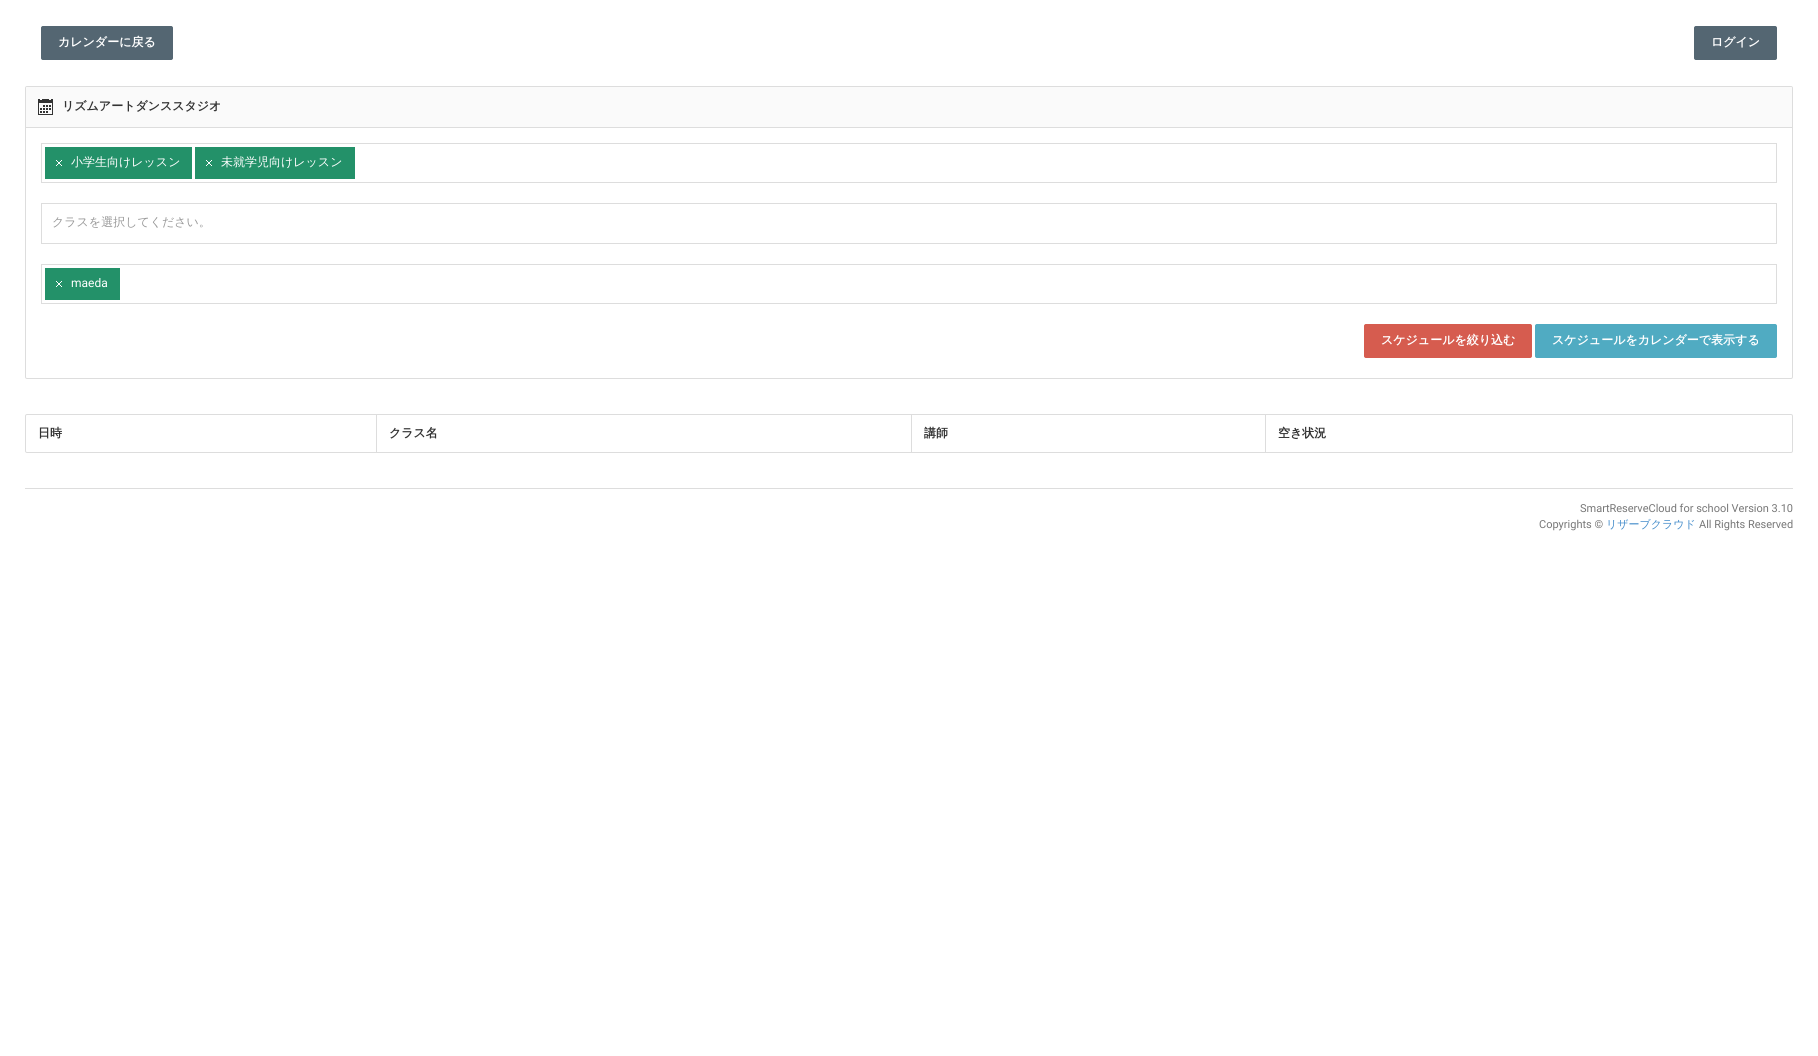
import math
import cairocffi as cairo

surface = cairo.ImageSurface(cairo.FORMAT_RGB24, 1818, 1056)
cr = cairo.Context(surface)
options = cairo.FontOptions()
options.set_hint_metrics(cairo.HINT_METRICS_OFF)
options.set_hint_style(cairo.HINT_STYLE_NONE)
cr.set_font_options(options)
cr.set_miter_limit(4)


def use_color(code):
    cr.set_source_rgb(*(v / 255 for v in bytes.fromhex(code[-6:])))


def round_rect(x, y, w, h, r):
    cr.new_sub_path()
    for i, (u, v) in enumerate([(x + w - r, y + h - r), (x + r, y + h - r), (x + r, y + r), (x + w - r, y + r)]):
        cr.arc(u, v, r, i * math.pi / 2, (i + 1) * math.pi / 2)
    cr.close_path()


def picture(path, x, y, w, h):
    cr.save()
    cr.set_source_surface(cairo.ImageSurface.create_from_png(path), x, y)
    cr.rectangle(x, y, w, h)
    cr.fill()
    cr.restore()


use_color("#ffffff")
cr.paint()
use_color("#546672")
round_rect(41.5, 26.5, 131, 33, 1.5)
cr.fill_preserve()
cr.set_line_width(1)
cr.stroke()
cr.select_font_face("WenQuanYi Zen Hei", cairo.FONT_SLANT_NORMAL, cairo.FONT_WEIGHT_BOLD)
cr.set_font_size(12)
use_color("#ffffff")
cr.move_to(58, 46)
cr.show_text("カレンダーに戻る")
use_color("#546672")
round_rect(1694.5, 26.5, 82, 33, 1.5)
cr.fill_preserve()
cr.stroke()
use_color("#ffffff")
cr.move_to(1711, 46)
cr.show_text("ログイン")
round_rect(25.5, 86.5, 1767, 292, 1.5)
use_color("#dddddd")
cr.stroke()
use_color("#fafafa")
cr.new_path()
cr.move_to(28, 87)
cr.line_to(1790, 87)
cr.curve_to(1791, 87, 1792, 88, 1792, 89)
cr.line_to(1792, 128)
cr.line_to(26, 128)
cr.line_to(26, 89)
cr.curve_to(26, 88, 27, 87, 28, 87)
cr.close_path()
cr.fill()
use_color("#dddddd")
cr.rectangle(26, 127, 1766, 1)
cr.fill()
picture("img1.png", 38, 99, 15, 16)
use_color("#333333")
cr.move_to(62, 110)
cr.show_text("リズムアートダンススタジオ")
cr.rectangle(41.5, 143.5, 1735, 39)
use_color("#dddddd")
cr.stroke()
use_color("#239169")
cr.rectangle(45, 147, 147, 32)
cr.fill()
picture("img2.png", 56, 160, 6, 6)
cr.select_font_face("WenQuanYi Zen Hei Medium")
use_color("#ffffff")
cr.move_to(71, 166)
cr.show_text("小学生向けレッスン")
use_color("#239169")
cr.rectangle(195, 147, 160, 32)
cr.fill()
picture("img2.png", 206, 160, 6, 6)
use_color("#ffffff")
cr.move_to(221, 166)
cr.show_text("未就学児向けレッスン")
cr.rectangle(41.5, 203.5, 1735, 40)
use_color("#dddddd")
cr.stroke()
use_color("#999999")
cr.move_to(52, 226)
cr.show_text("クラスを選択してください。")
cr.rectangle(41.5, 264.5, 1735, 39)
use_color("#dddddd")
cr.stroke()
use_color("#239169")
cr.rectangle(45, 268, 75, 32)
cr.fill()
picture("img2.png", 56, 281, 6, 6)
cr.select_font_face("Roboto")
use_color("#ffffff")
cr.move_to(71, 287)
cr.show_text("maeda")
use_color("#d65c4f")
round_rect(1364.5, 324.5, 167, 33, 1.5)
cr.fill_preserve()
cr.stroke()
cr.select_font_face("WenQuanYi Zen Hei", cairo.FONT_SLANT_NORMAL, cairo.FONT_WEIGHT_BOLD)
use_color("#ffffff")
cr.move_to(1381, 344)
cr.show_text("スケジュールを絞り込む")
use_color("#50abc2")
round_rect(1535.5, 324.5, 241, 33, 1.5)
cr.fill_preserve()
cr.stroke()
use_color("#ffffff")
cr.move_to(1552, 344)
cr.show_text("スケジュールをカレンダーで表示する")
round_rect(25.5, 414.5, 1767, 38, 1.5)
use_color("#dddddd")
cr.stroke()
use_color("#333333")
cr.move_to(38, 437)
cr.show_text("日時")
use_color("#dddddd")
cr.rectangle(376, 414, 1, 38)
cr.fill()
use_color("#333333")
cr.move_to(389, 437)
cr.show_text("クラス名")
use_color("#dddddd")
cr.rectangle(911, 414, 1, 38)
cr.fill()
use_color("#333333")
cr.move_to(924, 437)
cr.show_text("講師")
use_color("#dddddd")
cr.rectangle(1265, 414, 1, 38)
cr.fill()
use_color("#333333")
cr.move_to(1278, 437)
cr.show_text("空き状況")
use_color("#dddddd")
cr.rectangle(25, 488, 1768, 1)
cr.fill()
cr.select_font_face("Roboto")
cr.set_font_size(11)
use_color("#777777")
cr.move_to(1580, 512)
cr.show_text("SmartReserveCloud for school Version 3.10")
cr.move_to(1539, 528)
cr.show_text("Copyrights ©")
cr.select_font_face("WenQuanYi Zen Hei Medium")
use_color("#428bca")
cr.move_to(1606, 528)
cr.show_text("リザーブクラウド")
cr.select_font_face("Roboto")
use_color("#777777")
cr.move_to(1699, 528)
cr.show_text("All Rights Reserved")
surface.write_to_png("result.png")
